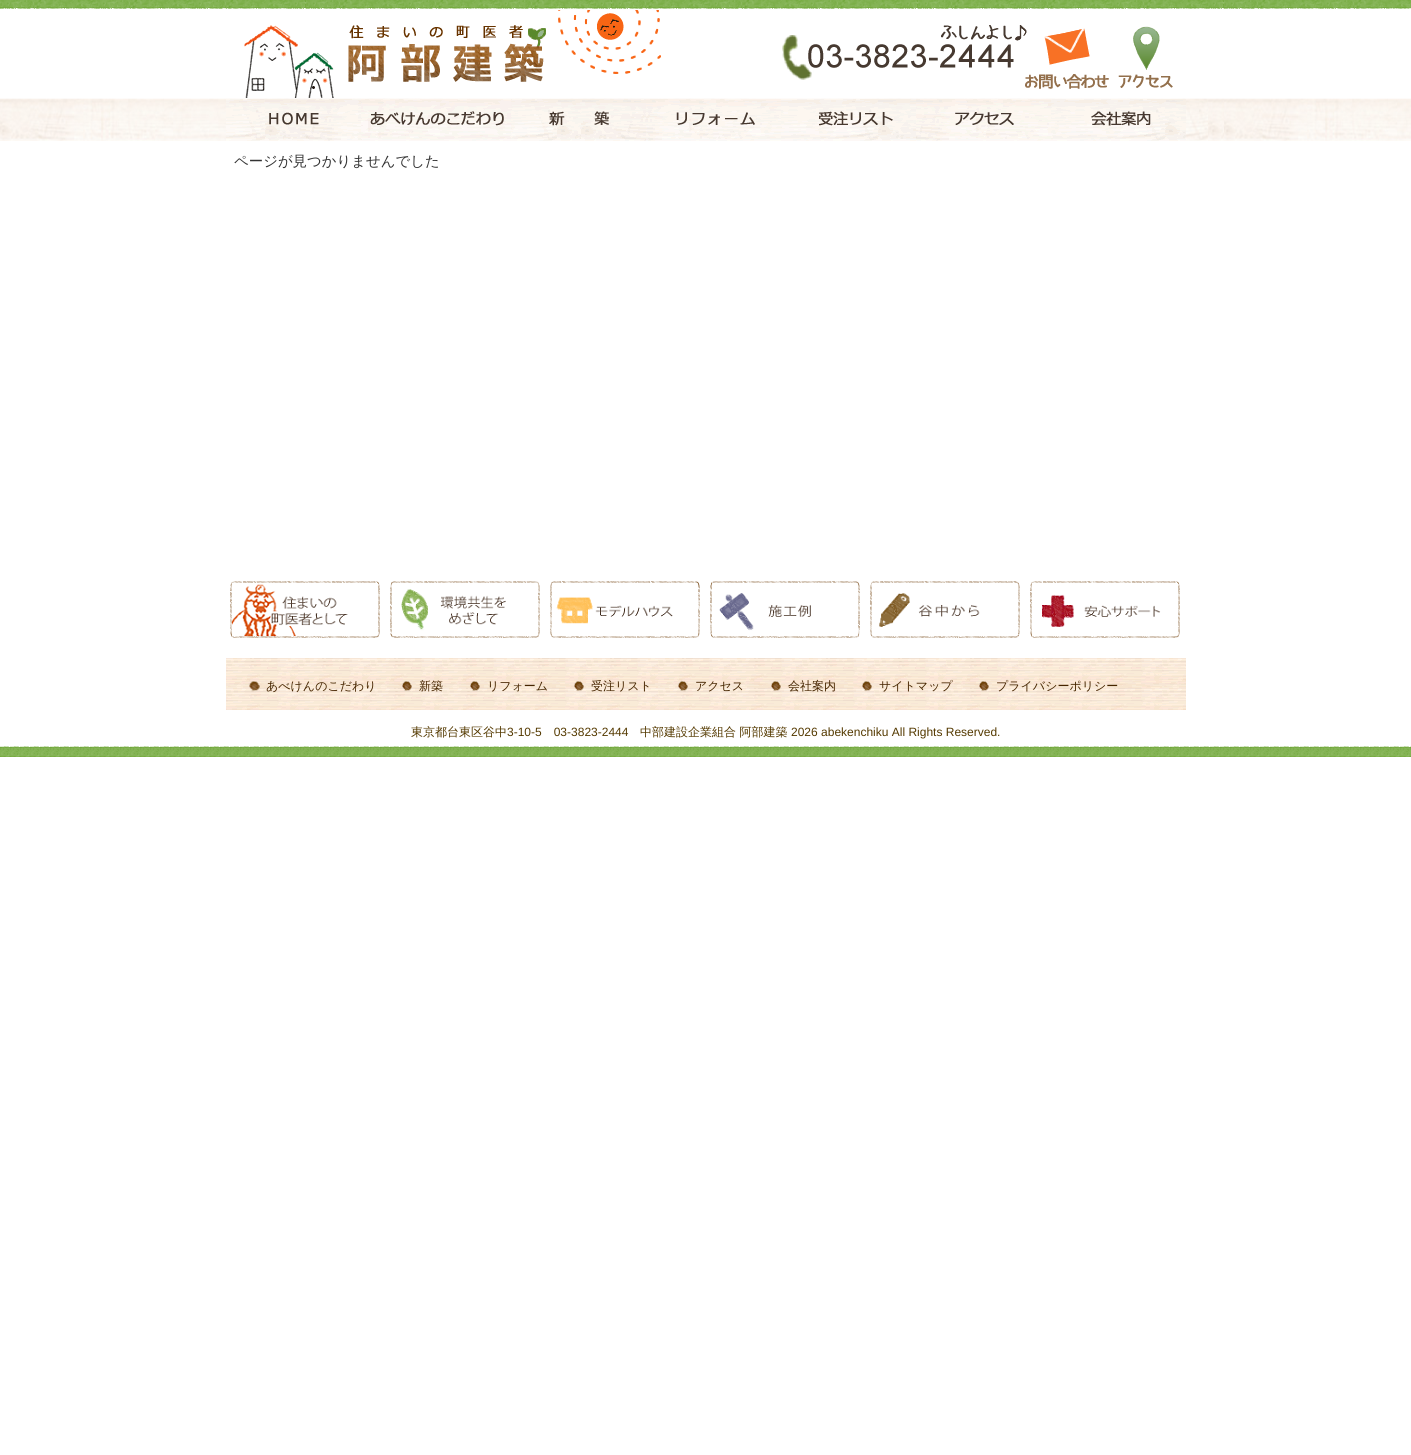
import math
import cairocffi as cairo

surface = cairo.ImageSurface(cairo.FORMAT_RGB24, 1411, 1455)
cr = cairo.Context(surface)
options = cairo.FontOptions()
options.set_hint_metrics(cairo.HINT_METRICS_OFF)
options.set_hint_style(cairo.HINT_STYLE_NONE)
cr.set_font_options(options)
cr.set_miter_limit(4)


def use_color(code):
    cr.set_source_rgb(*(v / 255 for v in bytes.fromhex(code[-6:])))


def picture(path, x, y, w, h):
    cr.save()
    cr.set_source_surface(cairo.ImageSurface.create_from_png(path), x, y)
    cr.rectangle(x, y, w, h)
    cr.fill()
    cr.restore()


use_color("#ffffff")
cr.paint()
picture("img1.png", 0, 0, 1411, 9)
picture("img2.png", 244, 10, 417, 88)
picture("img3.png", 782, 25, 391, 64)
picture("img4.png", 0, 98, 1411, 43)
picture("img5.png", 226, 99, 135, 42)
picture("img6.png", 361, 99, 150, 42)
picture("img7.png", 511, 99, 135, 42)
picture("img8.png", 646, 99, 135, 42)
picture("img9.png", 781, 99, 135, 42)
picture("img10.png", 916, 99, 135, 42)
picture("img11.png", 1051, 99, 135, 42)
cr.select_font_face("WenQuanYi Zen Hei Medium")
cr.set_font_size(14.4)
use_color("#333333")
cr.move_to(234, 166)
cr.show_text("ページが見つかりませんでした")
picture("img12.png", 230, 581, 150, 57)
picture("img13.png", 390, 581, 150, 57)
picture("img14.png", 550, 581, 150, 57)
picture("img15.png", 710, 581, 150, 57)
picture("img16.png", 870, 581, 150, 57)
picture("img17.png", 1030, 581, 150, 57)
picture("img18.png", 226, 658, 960, 52)
picture("img19.png", 249, 681, 11, 10)
cr.set_font_size(12)
use_color("#462500")
cr.move_to(266, 690)
cr.show_text("あべけんのこだわり")
picture("img20.png", 402, 681, 10, 10)
cr.move_to(419, 690)
cr.show_text("新築")
picture("img21.png", 470, 681, 10, 10)
cr.move_to(487, 690)
cr.show_text("リフォーム")
picture("img22.png", 574, 681, 10, 10)
cr.move_to(591, 690)
cr.show_text("受注リスト")
picture("img23.png", 678, 681, 10, 10)
cr.move_to(695, 690)
cr.show_text("アクセス")
picture("img24.png", 771, 681, 10, 10)
cr.move_to(788, 690)
cr.show_text("会社案内")
picture("img22.png", 862, 681, 10, 10)
cr.move_to(879, 690)
cr.show_text("サイトマップ")
picture("img25.png", 979, 681, 10, 10)
cr.move_to(996, 690)
cr.show_text("プライバシーポリシー")
use_color("#543900")
cr.move_to(411, 736)
cr.show_text("東京都台東区谷中")
cr.select_font_face("Liberation Sans")
cr.move_to(507, 736)
cr.show_text("3-10-5 03-3823-2444")
cr.select_font_face("WenQuanYi Zen Hei Medium")
cr.move_to(640, 736)
cr.show_text("中部建設企業組合 阿部建築")
cr.select_font_face("Liberation Sans")
cr.move_to(791, 736)
cr.show_text("2026 abekenchiku All Rights Reserved.")
picture("img26.png", 0, 746, 1411, 11)
surface.write_to_png("result.png")
